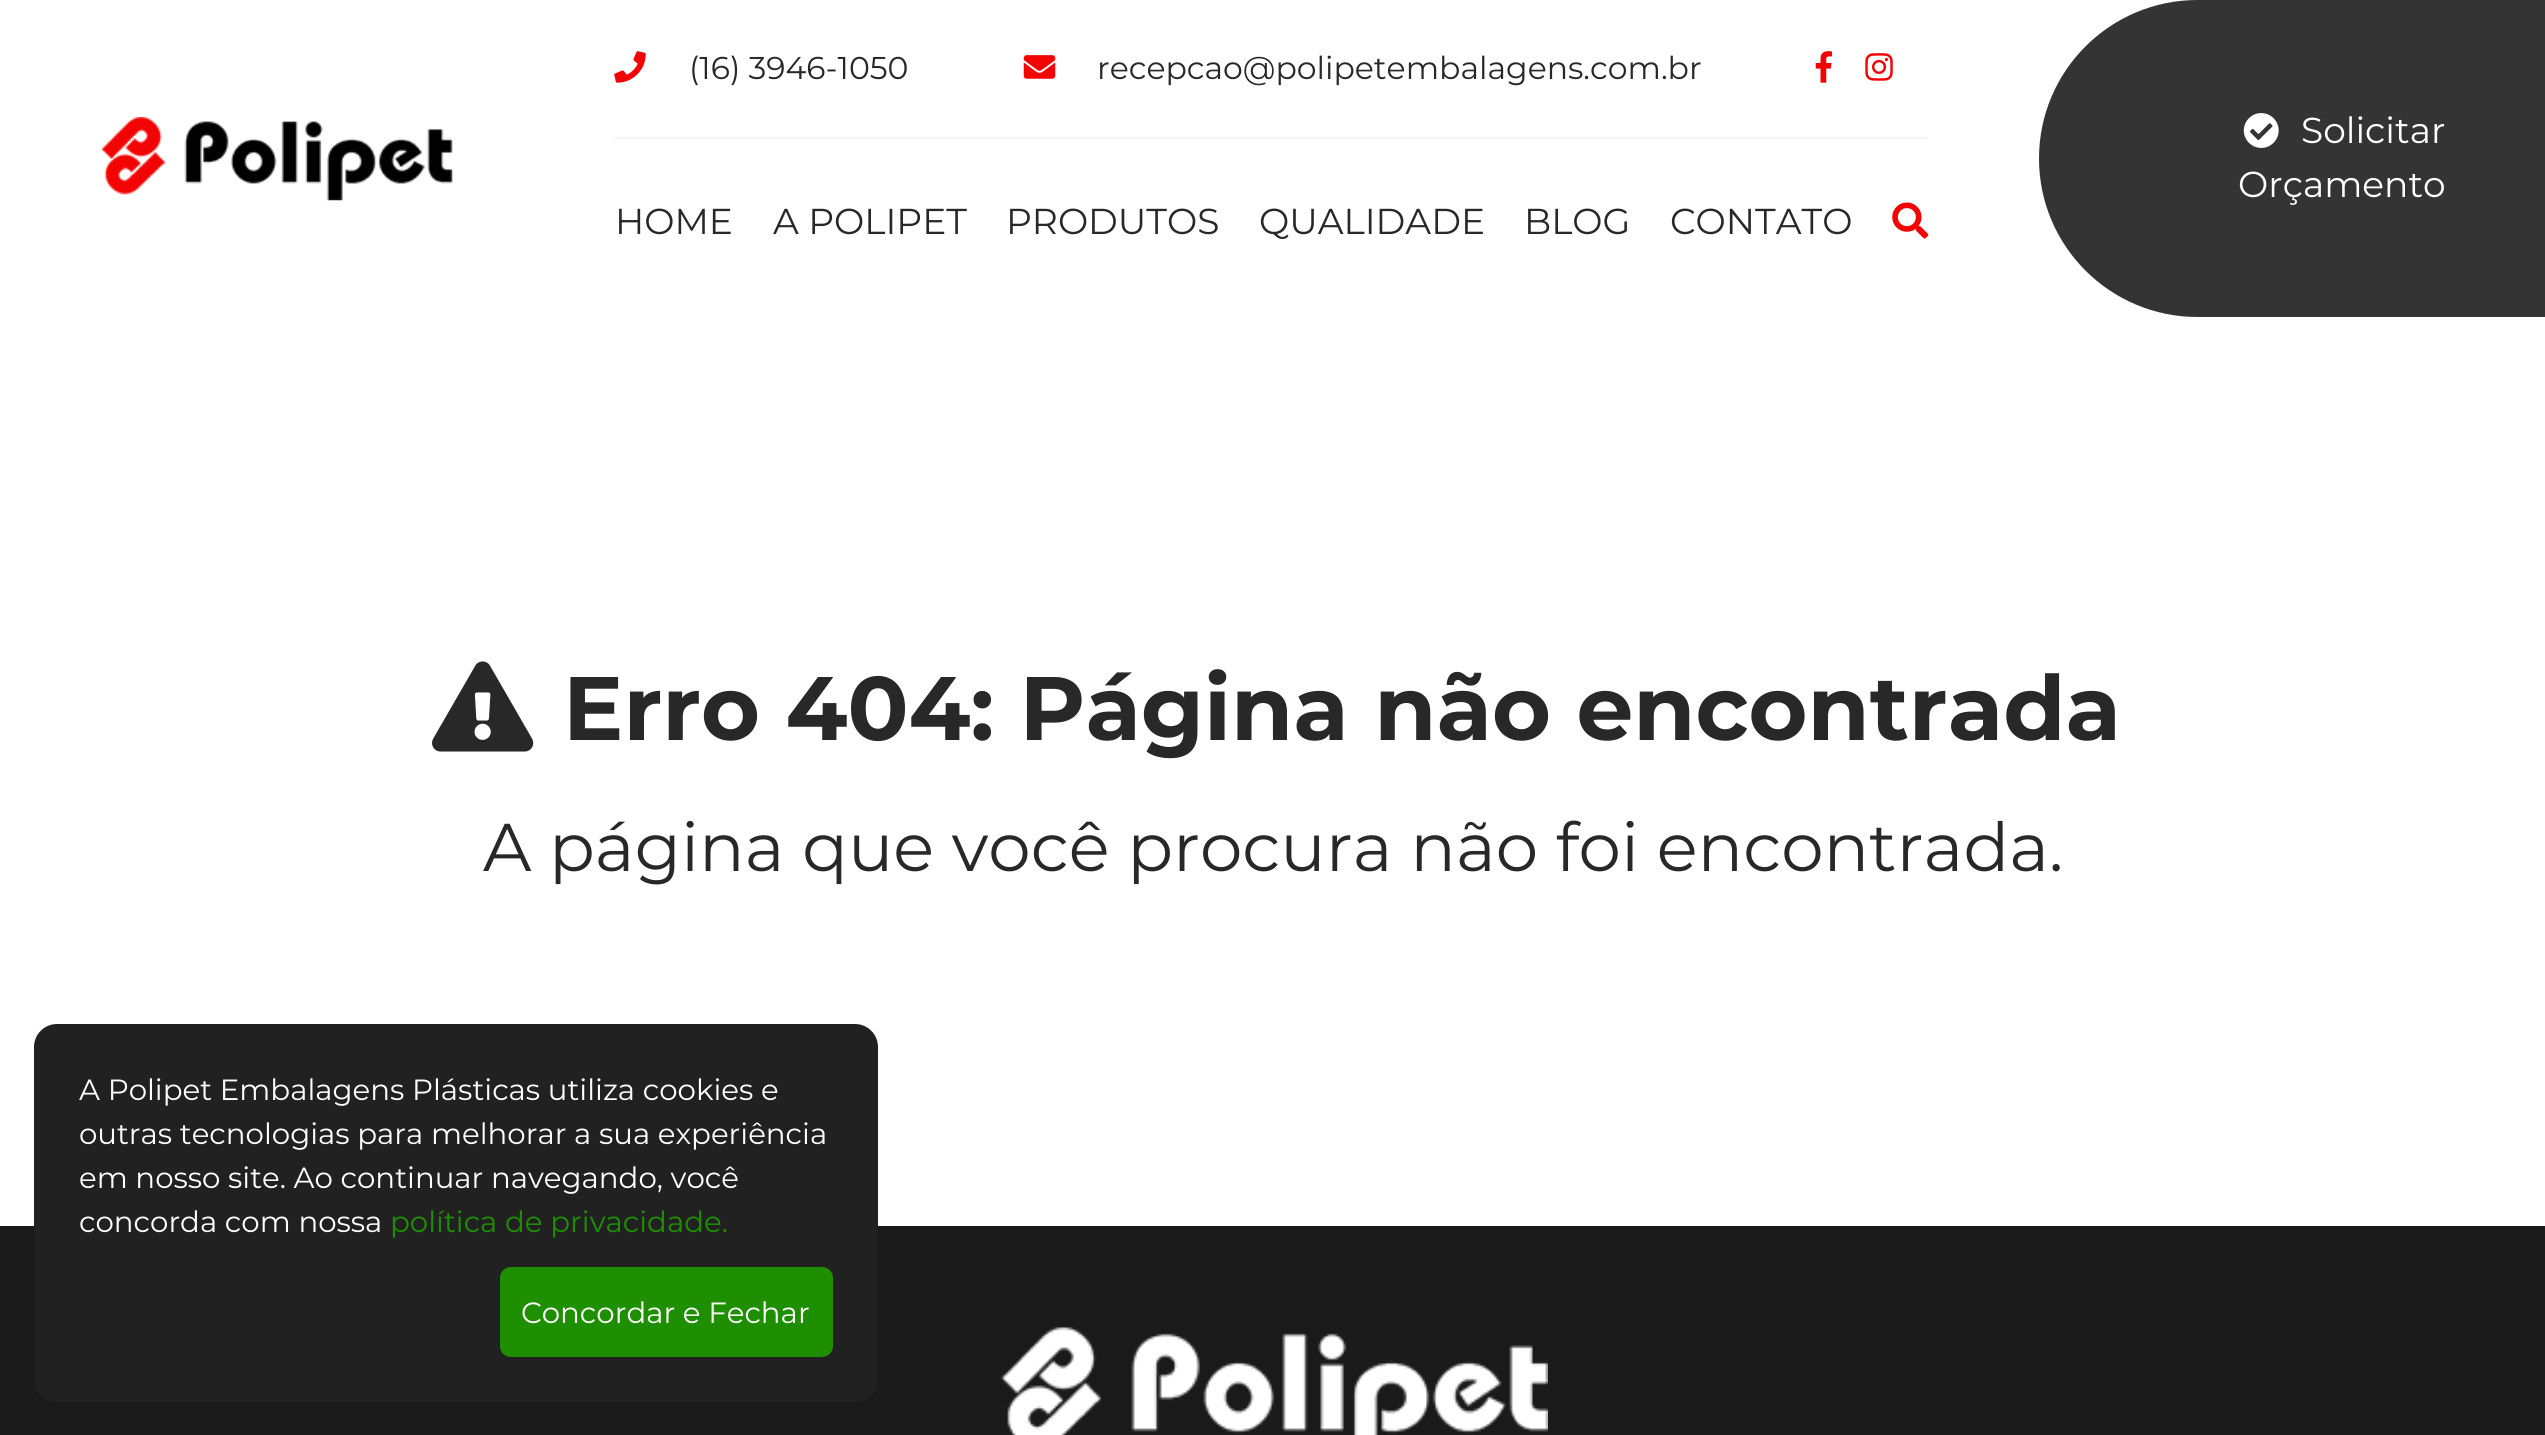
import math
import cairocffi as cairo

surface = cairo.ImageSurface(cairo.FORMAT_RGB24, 2545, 1435)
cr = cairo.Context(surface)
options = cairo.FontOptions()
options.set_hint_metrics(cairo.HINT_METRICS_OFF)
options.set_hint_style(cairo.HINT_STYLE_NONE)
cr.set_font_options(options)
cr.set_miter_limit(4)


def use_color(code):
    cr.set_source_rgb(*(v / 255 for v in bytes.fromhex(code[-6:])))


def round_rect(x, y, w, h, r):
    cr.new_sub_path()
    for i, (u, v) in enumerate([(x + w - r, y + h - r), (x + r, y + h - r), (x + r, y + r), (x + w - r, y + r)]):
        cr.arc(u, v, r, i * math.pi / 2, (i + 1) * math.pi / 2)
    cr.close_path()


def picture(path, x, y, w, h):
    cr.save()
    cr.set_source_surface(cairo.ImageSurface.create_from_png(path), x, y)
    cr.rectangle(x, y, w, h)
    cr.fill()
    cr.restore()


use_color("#ffffff")
cr.paint()
picture("img1.png", 101, 117, 352, 84)
use_color("#f5f5f5")
cr.rectangle(614, 137, 1314, 2)
cr.fill()
picture("img2.png", 614, 51, 32, 32)
cr.select_font_face("Montserrat")
cr.set_font_size(31.5)
use_color("#282828")
cr.move_to(689, 79)
cr.show_text("(16) 3946-1050")
picture("img3.png", 1023, 55, 33, 24)
cr.move_to(1097, 79)
cr.show_text("recepcao@polipetembalagens.com.br")
picture("img4.png", 1815, 51, 17, 32)
picture("img5.png", 1865, 53, 28, 28)
cr.set_font_size(36)
cr.move_to(615, 234)
cr.show_text("HOME")
cr.move_to(773, 234)
cr.show_text("A POLIPET")
cr.move_to(1006, 234)
cr.show_text("PRODUTOS")
cr.move_to(1259, 234)
cr.show_text("QUALIDADE")
cr.move_to(1524, 234)
cr.show_text("BLOG")
cr.move_to(1670, 234)
cr.show_text("CONTATO")
picture("img6.png", 1892, 202, 37, 37)
use_color("#343434")
cr.new_path()
cr.move_to(2197.5, 0)
cr.line_to(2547, 0)
cr.line_to(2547, 317)
cr.line_to(2197.5, 317)
cr.curve_to(2110, 317, 2039, 246, 2039, 158.5)
cr.curve_to(2039, 71, 2110, 0, 2197.5, 0)
cr.close_path()
cr.fill()
picture("img7.png", 2243, 113, 36, 35)
use_color("#ffffff")
cr.move_to(2301, 143)
cr.show_text("Solicitar")
cr.move_to(2238, 197)
cr.show_text("Orçamento")
picture("img8.png", 432, 661, 102, 91)
cr.select_font_face("Montserrat", cairo.FONT_SLANT_NORMAL, cairo.FONT_WEIGHT_BOLD)
cr.set_font_size(90)
use_color("#282828")
cr.move_to(563, 740)
cr.show_text("Erro 404: Página não encontrada")
cr.select_font_face("Montserrat")
cr.set_font_size(67.5)
cr.move_to(483, 871)
cr.show_text("A página que você procura não foi encontrada.")
use_color("#1a1a1a")
cr.rectangle(0, 1226, 2545, 209)
cr.fill()
use_color("#212121")
round_rect(34, 1024, 844, 378, 23)
cr.fill()
cr.set_font_size(29.25)
use_color("#ffffff")
cr.move_to(79, 1100)
cr.show_text("A Polipet Embalagens Plásticas utiliza cookies e")
cr.move_to(79, 1144)
cr.show_text("outras tecnologias para melhorar a sua experiência")
cr.move_to(79, 1188)
cr.show_text("em nosso site. Ao continuar navegando, você")
cr.move_to(79, 1232)
cr.show_text("concorda com nossa")
use_color("#1e8f00")
cr.move_to(390, 1232)
cr.show_text("política de privacidade.")
round_rect(500, 1267, 333, 90, 11)
cr.fill()
use_color("#ffffff")
cr.move_to(521, 1323)
cr.show_text("Concordar e Fechar")
picture("img9.png", 1001, 1327, 547, 108)
surface.write_to_png("result.png")
